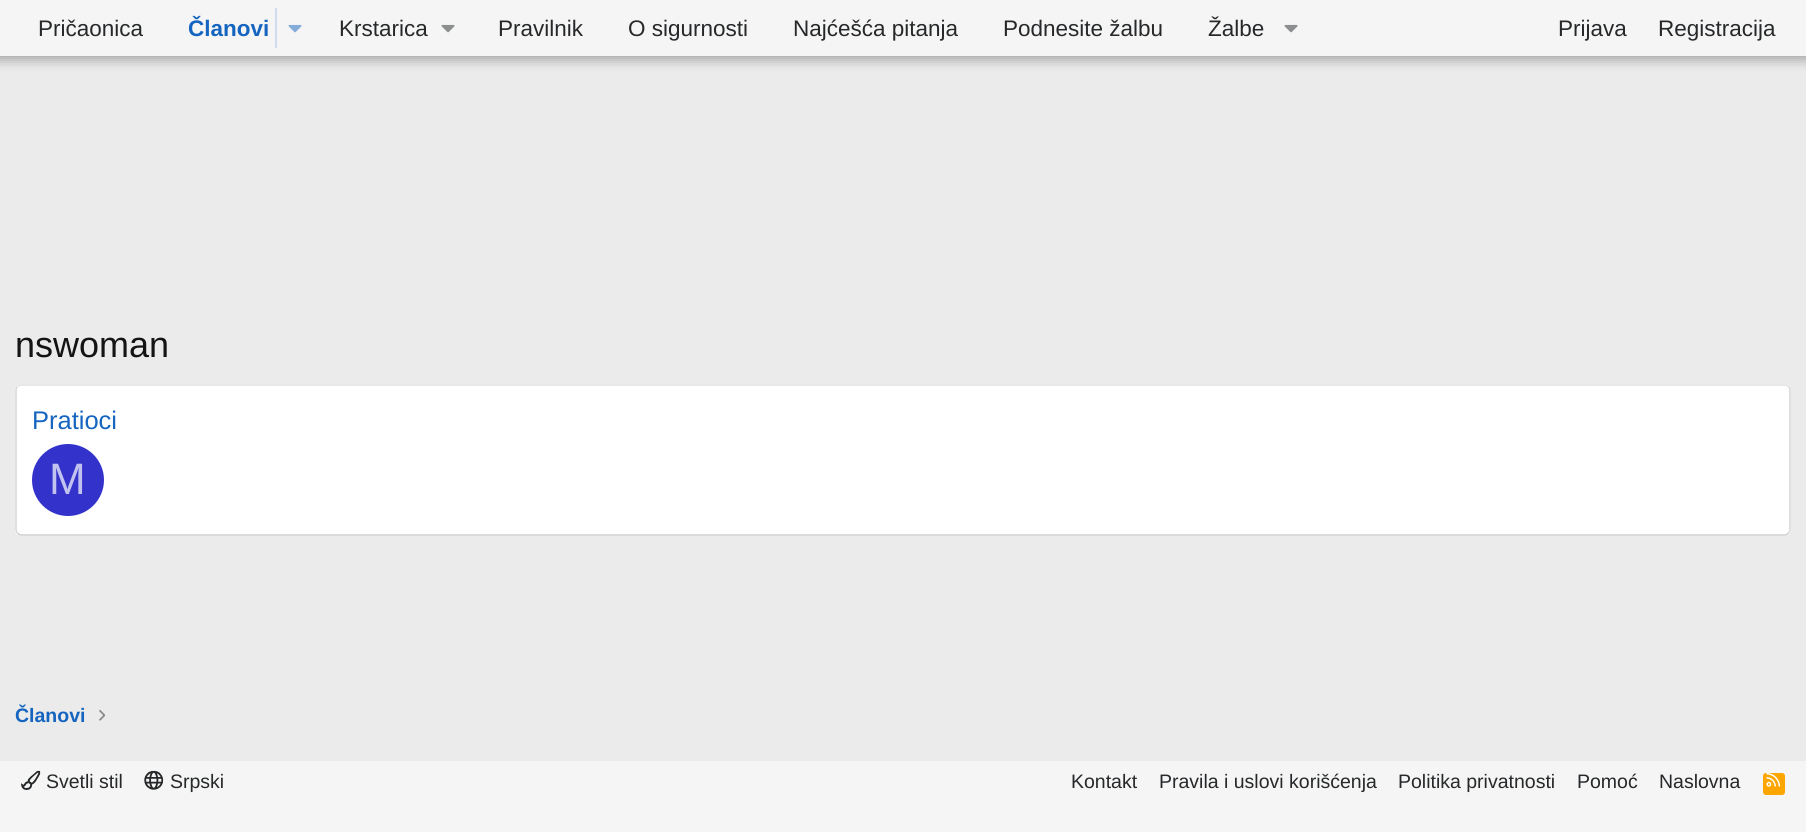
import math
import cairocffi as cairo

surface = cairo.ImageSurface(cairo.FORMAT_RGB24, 1806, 832)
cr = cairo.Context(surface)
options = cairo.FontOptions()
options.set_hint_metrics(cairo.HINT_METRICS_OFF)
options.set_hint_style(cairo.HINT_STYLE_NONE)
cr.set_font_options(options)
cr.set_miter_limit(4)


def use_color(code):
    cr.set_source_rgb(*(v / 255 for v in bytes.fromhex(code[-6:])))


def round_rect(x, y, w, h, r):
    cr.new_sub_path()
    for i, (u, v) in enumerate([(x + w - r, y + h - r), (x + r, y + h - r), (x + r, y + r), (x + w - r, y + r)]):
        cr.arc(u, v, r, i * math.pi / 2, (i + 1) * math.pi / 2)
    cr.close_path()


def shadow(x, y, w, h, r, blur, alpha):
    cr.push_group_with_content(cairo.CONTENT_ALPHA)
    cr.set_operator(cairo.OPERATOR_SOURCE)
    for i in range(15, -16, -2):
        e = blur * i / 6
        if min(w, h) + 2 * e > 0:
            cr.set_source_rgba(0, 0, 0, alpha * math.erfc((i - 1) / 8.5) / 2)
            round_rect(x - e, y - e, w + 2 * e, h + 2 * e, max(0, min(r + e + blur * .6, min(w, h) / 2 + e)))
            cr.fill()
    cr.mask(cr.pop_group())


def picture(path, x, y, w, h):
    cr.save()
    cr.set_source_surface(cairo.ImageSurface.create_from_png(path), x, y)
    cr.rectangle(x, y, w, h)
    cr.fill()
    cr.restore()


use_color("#ebebeb")
cr.paint()
use_color("#000000")
shadow(-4, -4, 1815, 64, 0, 6, 0.3)
use_color("#f5f5f5")
cr.rectangle(0, 0, 1806, 56)
cr.fill()
cr.select_font_face("Liberation Sans")
cr.set_font_size(22.5)
use_color("#26282a")
cr.move_to(38, 36)
cr.show_text("Pričaonica")
cr.select_font_face("Liberation Sans", cairo.FONT_SLANT_NORMAL, cairo.FONT_WEIGHT_BOLD)
use_color("#1565c0")
cr.move_to(188, 36)
cr.show_text("Članovi")
use_color("#cedcec")
cr.rectangle(275, 8, 2, 40)
cr.fill()
picture("img1.png", 288, 24, 14, 9)
cr.select_font_face("Liberation Sans")
use_color("#26282a")
cr.move_to(339, 36)
cr.show_text("Krstarica")
picture("img2.png", 441, 24, 14, 9)
cr.move_to(498, 36)
cr.show_text("Pravilnik")
cr.move_to(628, 36)
cr.show_text("O sigurnosti")
cr.move_to(793, 36)
cr.show_text("Najćešća pitanja")
cr.move_to(1003, 36)
cr.show_text("Podnesite žalbu")
cr.move_to(1208, 36)
cr.show_text("Žalbe")
picture("img2.png", 1284, 24, 14, 9)
cr.move_to(1558, 36)
cr.show_text("Prijava")
cr.move_to(1658, 36)
cr.show_text("Registracija")
cr.set_font_size(36)
use_color("#141414")
cr.move_to(15, 357)
cr.show_text("nswoman")
use_color("#ffffff")
round_rect(15, 384, 1776, 152, 6)
cr.fill()
cr.new_path()
cr.move_to(17.5, 386.5)
cr.curve_to(18.5, 385.5, 19.5, 385, 21, 385)
cr.line_to(1785, 385)
cr.curve_to(1786.5, 385, 1787.5, 385.5, 1788.5, 386.5)
use_color("#e0e0e0")
cr.set_line_width(1.5)
cr.stroke()
cr.new_path()
cr.move_to(1788.5, 386.5)
cr.curve_to(1789.5, 387.5, 1790, 388.5, 1790, 390)
cr.line_to(1790, 529.5)
cr.curve_to(1790, 531, 1789.5, 532, 1788.5, 533)
use_color("#d6d6d6")
cr.stroke()
cr.new_path()
cr.move_to(1788.5, 533)
cr.curve_to(1787.5, 534, 1786.5, 535, 1785, 535)
cr.line_to(21, 535)
cr.curve_to(19.5, 535, 18.5, 534, 17.5, 533)
use_color("#cccccc")
cr.stroke()
cr.new_path()
cr.move_to(17.5, 533)
cr.curve_to(16.5, 532, 16, 531, 16, 529.5)
cr.line_to(16, 390)
cr.curve_to(16, 388.5, 16.5, 387.5, 17.5, 386.5)
use_color("#d6d6d6")
cr.stroke()
cr.set_font_size(25.5)
use_color("#1565c0")
cr.move_to(32, 429)
cr.show_text("Pratioci")
use_color("#3333cc")
cr.new_path()
cr.arc(68, 480, 36, 0, 2 * math.pi)
cr.fill()
cr.set_font_size(44)
use_color("#c2c2f0")
cr.move_to(49, 494)
cr.show_text("M")
cr.select_font_face("Liberation Sans", cairo.FONT_SLANT_NORMAL, cairo.FONT_WEIGHT_BOLD)
cr.set_font_size(19.5)
use_color("#1565c0")
cr.move_to(15, 722)
cr.show_text("Članovi")
picture("img3.png", 99, 709, 6, 12)
use_color("#f5f5f5")
cr.rectangle(0, 761, 1806, 71)
cr.fill()
picture("img4.png", 21, 770, 20, 20)
cr.select_font_face("Liberation Sans")
use_color("#26282a")
cr.move_to(46, 788)
cr.show_text("Svetli stil")
picture("img5.png", 144, 770, 20, 20)
cr.move_to(170, 788)
cr.show_text("Srpski")
cr.move_to(1071, 788)
cr.show_text("Kontakt")
cr.move_to(1159, 788)
cr.show_text("Pravila i uslovi korišćenja")
cr.move_to(1398, 788)
cr.show_text("Politika privatnosti")
cr.move_to(1577, 788)
cr.show_text("Pomoć")
cr.move_to(1659, 788)
cr.show_text("Naslovna")
use_color("#ffa500")
round_rect(1763, 773, 22, 22, 3)
cr.fill()
picture("img6.png", 1766, 773, 15, 14)
surface.write_to_png("result.png")
